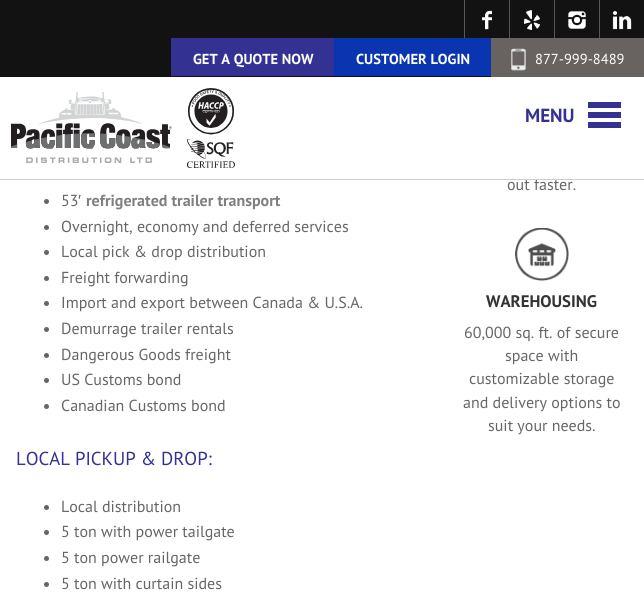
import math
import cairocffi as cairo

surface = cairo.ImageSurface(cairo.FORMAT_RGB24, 644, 597)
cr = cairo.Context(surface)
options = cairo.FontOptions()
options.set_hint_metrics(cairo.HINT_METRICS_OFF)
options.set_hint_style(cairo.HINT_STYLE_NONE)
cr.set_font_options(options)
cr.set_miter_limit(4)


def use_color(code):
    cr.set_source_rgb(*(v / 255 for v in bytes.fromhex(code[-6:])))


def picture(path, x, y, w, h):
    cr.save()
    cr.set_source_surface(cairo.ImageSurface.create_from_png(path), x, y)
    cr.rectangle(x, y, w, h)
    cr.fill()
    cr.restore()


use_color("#ffffff")
cr.paint()
cr.select_font_face("PT Sans")
cr.set_font_size(16)
use_color("#666666")
cr.move_to(507, 190)
cr.show_text("out faster.")
use_color("#ffffff")
cr.rectangle(536, 178, 4, 1)
cr.fill()
use_color("#cccccc")
cr.rectangle(0, 179, 644, 1)
cr.fill()
use_color("#121212")
cr.rectangle(0, 0, 644, 77)
cr.fill()
use_color("#575657")
cr.rectangle(464, 0, 1, 38)
cr.fill()
picture("img1.png", 482, 10, 10, 20)
cr.rectangle(509, 0, 1, 38)
cr.fill()
picture("img2.png", 524, 10, 16, 20)
cr.rectangle(554, 0, 1, 38)
cr.fill()
picture("img3.png", 568, 11, 18, 18)
cr.rectangle(599, 0, 1, 38)
cr.fill()
picture("img4.png", 612, 11, 20, 19)
use_color("#333192")
cr.rectangle(171, 38, 163, 38)
cr.fill()
cr.select_font_face("PT Sans", cairo.FONT_SLANT_NORMAL, cairo.FONT_WEIGHT_BOLD)
cr.set_font_size(14.5)
use_color("#ffffff")
cr.move_to(193, 64)
cr.show_text("GET A QUOTE NOW")
use_color("#0a35b0")
cr.rectangle(334, 38, 157, 38)
cr.fill()
use_color("#ffffff")
cr.move_to(356, 64)
cr.show_text("CUSTOMER LOGIN")
use_color("#686360")
cr.rectangle(491, 38, 153, 39)
cr.fill()
picture("img5.png", 511, 48, 15, 23)
cr.select_font_face("PT Sans")
use_color("#ffffff")
cr.move_to(535, 64)
cr.show_text("877-999-8489")
picture("img6.png", 11, 92, 161, 71)
picture("img7.png", 187, 88, 48, 80)
cr.select_font_face("PT Sans", cairo.FONT_SLANT_NORMAL, cairo.FONT_WEIGHT_BOLD)
cr.set_font_size(19)
use_color("#333192")
cr.move_to(525, 122)
cr.show_text("MENU")
cr.rectangle(588, 102, 33, 6)
cr.fill()
cr.rectangle(588, 112, 33, 6)
cr.fill()
cr.rectangle(588, 122, 33, 6)
cr.fill()
cr.select_font_face("PT Sans")
cr.set_font_size(16)
use_color("#666666")
cr.move_to(61, 206)
cr.show_text("53")
cr.select_font_face("Liberation Sans")
cr.move_to(78, 206)
cr.show_text("′")
cr.select_font_face("PT Sans", cairo.FONT_SLANT_NORMAL, cairo.FONT_WEIGHT_BOLD)
use_color("#808080")
cr.move_to(86, 206)
cr.show_text("refrigerated trailer transport")
use_color("#666666")
cr.new_path()
cr.arc(46.5, 201.5, 2.5, 0, 2 * math.pi)
cr.fill()
cr.arc(46.5, 227.5, 2.5, 0, 2 * math.pi)
cr.fill()
cr.select_font_face("PT Sans")
cr.move_to(61, 232)
cr.show_text("Overnight, economy and deferred services")
cr.new_path()
cr.arc(46.5, 252.5, 2.5, 0, 2 * math.pi)
cr.fill()
cr.move_to(61, 257)
cr.show_text("Local pick & drop distribution")
cr.new_path()
cr.arc(46.5, 278.5, 2.5, 0, 2 * math.pi)
cr.fill()
cr.move_to(61, 283)
cr.show_text("Freight forwarding")
cr.new_path()
cr.arc(46.5, 303.5, 2.5, 0, 2 * math.pi)
cr.fill()
cr.move_to(61, 308)
cr.show_text("Import and export between Canada & U.S.A.")
cr.new_path()
cr.arc(46.5, 329.5, 2.5, 0, 2 * math.pi)
cr.fill()
cr.move_to(61, 334)
cr.show_text("Demurrage trailer rentals")
cr.new_path()
cr.arc(46.5, 355.5, 2.5, 0, 2 * math.pi)
cr.fill()
cr.move_to(61, 360)
cr.show_text("Dangerous Goods freight")
cr.new_path()
cr.arc(46.5, 380.5, 2.5, 0, 2 * math.pi)
cr.fill()
cr.move_to(61, 385)
cr.show_text("US Customs bond")
cr.new_path()
cr.arc(46.5, 406.5, 2.5, 0, 2 * math.pi)
cr.fill()
cr.move_to(61, 411)
cr.show_text("Canadian Customs bond")
cr.set_font_size(18.75)
use_color("#333192")
cr.move_to(16, 465)
cr.show_text("LOCAL PICKUP & DROP:")
use_color("#666666")
cr.new_path()
cr.arc(46.5, 507.5, 2.5, 0, 2 * math.pi)
cr.fill()
cr.set_font_size(16)
cr.move_to(61, 512)
cr.show_text("Local distribution")
cr.new_path()
cr.arc(46.5, 532.5, 2.5, 0, 2 * math.pi)
cr.fill()
cr.move_to(61, 537)
cr.show_text("5 ton with power tailgate")
cr.new_path()
cr.arc(46.5, 558.5, 2.5, 0, 2 * math.pi)
cr.fill()
cr.move_to(61, 563)
cr.show_text("5 ton power railgate")
cr.new_path()
cr.arc(46.5, 584.5, 2.5, 0, 2 * math.pi)
cr.fill()
cr.move_to(61, 589)
cr.show_text("5 ton with curtain sides")
picture("img8.png", 515, 228, 54, 53)
cr.select_font_face("PT Sans", cairo.FONT_SLANT_NORMAL, cairo.FONT_WEIGHT_BOLD)
cr.set_font_size(16.75)
use_color("#333333")
cr.move_to(486, 307)
cr.show_text("WAREHOUSING")
cr.select_font_face("PT Sans")
cr.set_font_size(16)
use_color("#666666")
cr.move_to(464, 338)
cr.show_text("60,000 sq. ft. of secure")
cr.move_to(505, 361)
cr.show_text("space with")
cr.move_to(469, 384)
cr.show_text("customizable storage")
cr.move_to(463, 408)
cr.show_text("and delivery options to")
cr.move_to(488, 431)
cr.show_text("suit your needs.")
surface.write_to_png("result.png")
